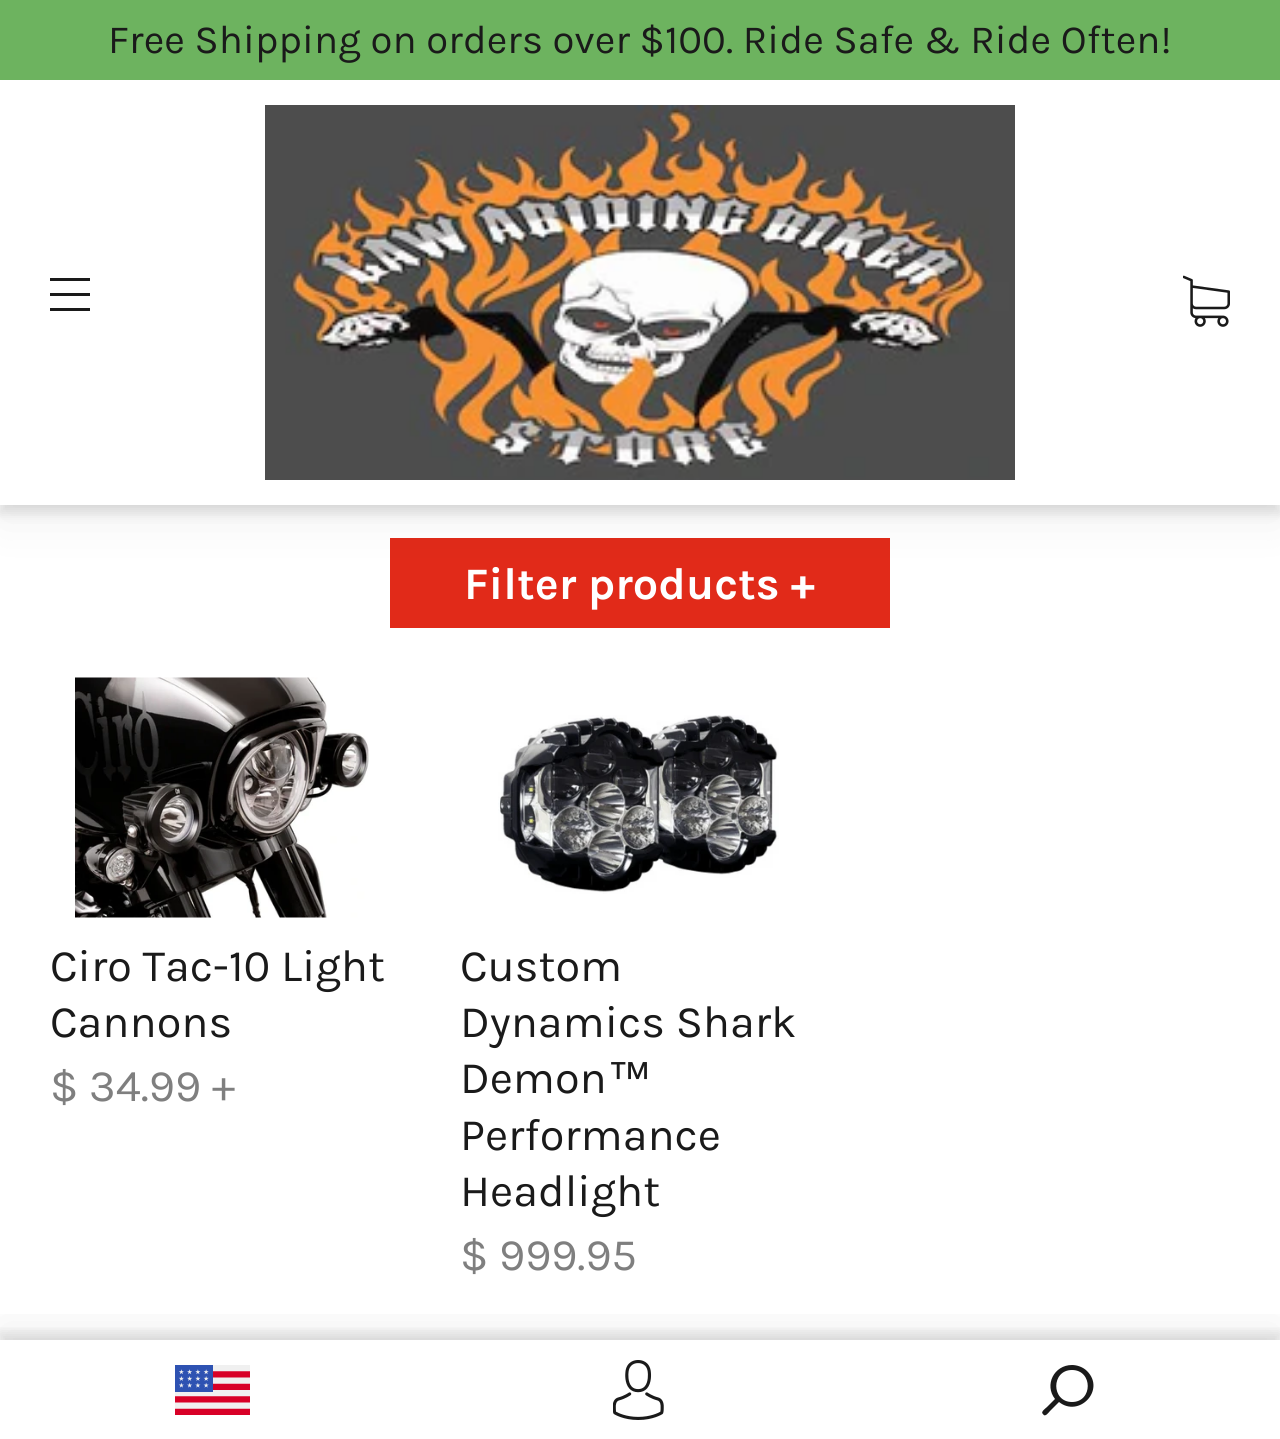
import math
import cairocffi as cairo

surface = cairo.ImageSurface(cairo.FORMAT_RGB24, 1280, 1439)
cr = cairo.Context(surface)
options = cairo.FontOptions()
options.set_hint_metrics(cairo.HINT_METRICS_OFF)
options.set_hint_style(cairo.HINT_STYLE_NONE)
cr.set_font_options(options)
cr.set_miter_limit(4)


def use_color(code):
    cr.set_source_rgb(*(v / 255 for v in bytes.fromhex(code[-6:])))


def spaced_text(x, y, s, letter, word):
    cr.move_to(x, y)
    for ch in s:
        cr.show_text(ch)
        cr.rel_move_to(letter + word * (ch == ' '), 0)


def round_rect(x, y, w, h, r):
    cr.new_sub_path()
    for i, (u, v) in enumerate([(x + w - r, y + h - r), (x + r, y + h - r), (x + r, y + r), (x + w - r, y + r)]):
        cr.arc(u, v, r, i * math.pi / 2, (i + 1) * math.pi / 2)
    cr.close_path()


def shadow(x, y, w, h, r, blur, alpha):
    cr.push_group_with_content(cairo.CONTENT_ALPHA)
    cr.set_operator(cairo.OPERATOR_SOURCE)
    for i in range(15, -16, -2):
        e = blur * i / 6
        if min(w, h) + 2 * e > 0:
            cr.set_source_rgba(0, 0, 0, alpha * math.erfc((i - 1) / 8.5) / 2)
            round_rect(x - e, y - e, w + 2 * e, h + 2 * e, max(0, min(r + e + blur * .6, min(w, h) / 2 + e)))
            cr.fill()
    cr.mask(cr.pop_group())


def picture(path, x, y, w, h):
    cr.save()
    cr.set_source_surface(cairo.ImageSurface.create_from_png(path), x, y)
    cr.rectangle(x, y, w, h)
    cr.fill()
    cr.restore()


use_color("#ffffff")
cr.paint()
use_color("#e12a19")
cr.rectangle(390, 538, 500, 90)
cr.fill()
use_color("#000000")
shadow(0, 15, 1280, 505, 0, 25, 0.06)
shadow(0, 8, 1280, 505, 0, 6, 0.12)
use_color("#ffffff")
cr.rectangle(0, 80, 1280, 425)
cr.fill()
use_color("#6db35f")
cr.rectangle(0, 0, 1280, 80)
cr.fill()
cr.select_font_face("Karla")
cr.set_font_size(40)
use_color("#1a1a1a")
spaced_text(108, 53, "Free Shipping on orders over $100. Ride Safe & Ride Often!", 0.1, 0)
cr.rectangle(50, 278, 40, 3)
cr.fill()
cr.rectangle(50, 293, 40, 3)
cr.fill()
cr.rectangle(50, 308, 40, 3)
cr.fill()
picture("img1.png", 265, 105, 750, 375)
picture("img2.png", 1183, 275, 47, 52)
cr.select_font_face("Karla", cairo.FONT_SLANT_NORMAL, cairo.FONT_WEIGHT_BOLD)
cr.set_font_size(45)
use_color("#ffffff")
cr.move_to(464, 599)
cr.show_text("Filter products +")
picture("img3.png", 75, 677, 295, 241)
cr.select_font_face("Karla")
use_color("#1a1a1a")
cr.move_to(50, 981)
cr.show_text("Ciro Tac-10 Light")
cr.move_to(50, 1037)
cr.show_text("Cannons")
use_color("#7f7f7f")
cr.move_to(50, 1101)
cr.show_text("$ 34.99 +")
picture("img4.png", 498, 715, 281, 179)
use_color("#1a1a1a")
cr.move_to(460, 981)
cr.show_text("Custom")
cr.move_to(460, 1037)
cr.show_text("Dynamics Shark")
cr.move_to(460, 1093)
cr.show_text("Demon")
cr.select_font_face("Liberation Sans")
cr.move_to(607, 1093)
cr.show_text("™")
cr.select_font_face("Karla")
cr.move_to(460, 1150)
cr.show_text("Performance")
cr.move_to(460, 1206)
cr.show_text("Headlight")
use_color("#7f7f7f")
cr.move_to(460, 1270)
cr.show_text("$ 999.95")
cr.save()
cr.rectangle(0, 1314, 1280, 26)
cr.clip()
use_color("#000000")
shadow(0, 1325, 1280, 100, 0, 25, 0.06)
cr.restore()
cr.save()
cr.rectangle(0, 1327, 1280, 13)
cr.clip()
use_color("#000000")
shadow(0, 1333, 1280, 100, 0, 6, 0.12)
cr.restore()
picture("img5.png", 175, 1365, 75, 50)
picture("img6.png", 613, 1360, 51, 60)
use_color("#1a1a1a")
cr.new_path()
cr.move_to(1072, 1365)
cr.curve_to(1054, 1365, 1044, 1385, 1055, 1399)
cr.line_to(1047, 1407)
cr.curve_to(1046, 1408, 1040, 1412, 1043, 1414)
cr.curve_to(1045, 1418, 1049, 1412, 1050, 1411)
cr.line_to(1059, 1402)
cr.curve_to(1079, 1418, 1106, 1390, 1087, 1371)
cr.curve_to(1083, 1367, 1077, 1365, 1072, 1365)
cr.close_path()
cr.move_to(1072, 1402)
cr.curve_to(1051, 1402, 1051, 1370, 1072, 1370)
cr.curve_to(1093, 1370, 1093, 1402, 1072, 1402)
cr.close_path()
cr.fill()
surface.write_to_png("result.png")
